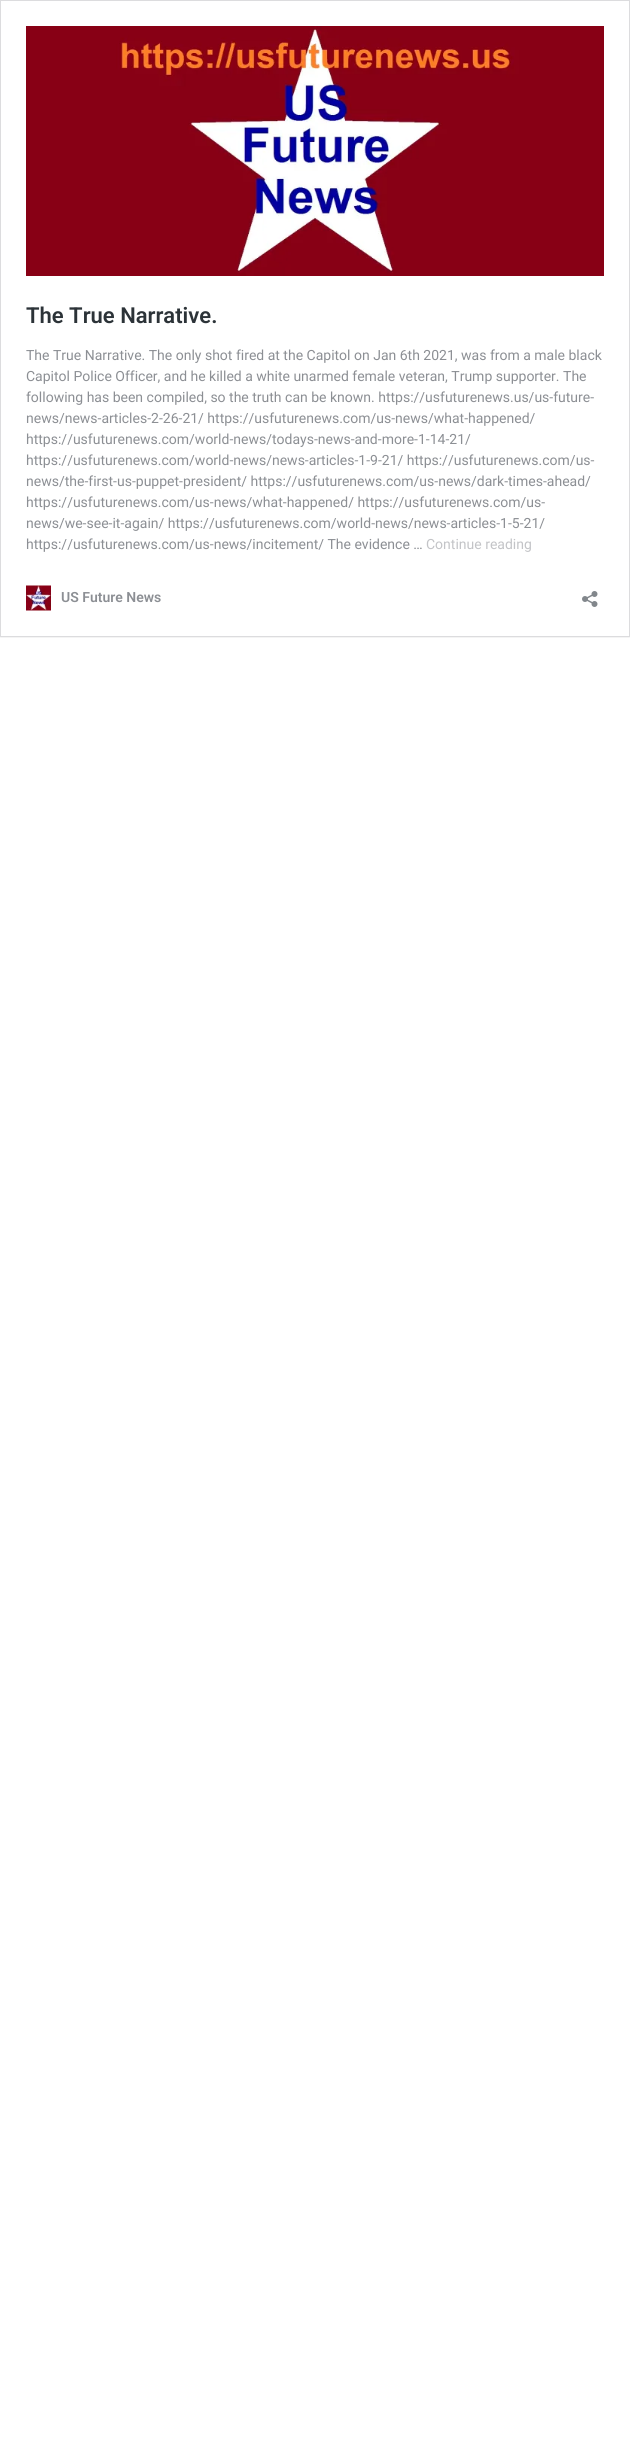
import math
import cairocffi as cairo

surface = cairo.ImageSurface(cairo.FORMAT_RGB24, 630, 2443)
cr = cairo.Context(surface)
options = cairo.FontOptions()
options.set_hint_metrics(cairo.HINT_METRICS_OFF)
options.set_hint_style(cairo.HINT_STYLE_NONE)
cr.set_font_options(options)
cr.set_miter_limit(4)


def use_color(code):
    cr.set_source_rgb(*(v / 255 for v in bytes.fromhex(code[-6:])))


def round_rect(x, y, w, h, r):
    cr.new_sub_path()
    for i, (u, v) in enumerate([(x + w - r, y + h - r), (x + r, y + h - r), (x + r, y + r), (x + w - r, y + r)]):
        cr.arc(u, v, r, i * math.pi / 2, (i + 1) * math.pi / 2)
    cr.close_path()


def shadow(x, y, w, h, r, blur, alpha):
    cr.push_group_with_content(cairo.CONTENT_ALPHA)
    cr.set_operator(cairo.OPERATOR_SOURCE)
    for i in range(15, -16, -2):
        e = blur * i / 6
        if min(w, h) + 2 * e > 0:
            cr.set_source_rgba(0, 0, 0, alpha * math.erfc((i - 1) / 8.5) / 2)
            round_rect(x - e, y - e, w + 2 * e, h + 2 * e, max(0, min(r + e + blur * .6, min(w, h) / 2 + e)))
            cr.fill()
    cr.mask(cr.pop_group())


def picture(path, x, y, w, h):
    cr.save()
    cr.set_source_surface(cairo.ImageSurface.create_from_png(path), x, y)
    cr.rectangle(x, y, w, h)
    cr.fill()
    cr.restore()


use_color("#ffffff")
cr.paint()
cr.save()
cr.rectangle(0, 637, 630, 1)
cr.clip()
use_color("#000000")
shadow(0, 1, 630, 637, 0, 0.5, 0.05)
cr.restore()
cr.rectangle(0.5, 0.5, 629, 636)
use_color("#dcdcde")
cr.set_line_width(1)
cr.stroke()
picture("img1.png", 26, 26, 578, 250)
cr.select_font_face("Roboto SemiBold")
cr.set_font_size(22)
use_color("#2c3338")
cr.move_to(26, 323)
cr.show_text("The True Narrative.")
cr.select_font_face("Roboto")
cr.set_font_size(14)
use_color("#8c8f94")
cr.move_to(26, 360)
cr.show_text("The True Narrative. The only shot fired at the Capitol on Jan 6th 2021, was from a male black")
cr.move_to(26, 381)
cr.show_text("Capitol Police Officer, and he killed a white unarmed female veteran, Trump supporter. The")
cr.move_to(26, 402)
cr.show_text("following has been compiled, so the truth can be known. https://usfuturenews.us/us-future-")
cr.move_to(26, 423)
cr.show_text("news/news-articles-2-26-21/ https://usfuturenews.com/us-news/what-happened/")
cr.move_to(26, 444)
cr.show_text("https://usfuturenews.com/world-news/todays-news-and-more-1-14-21/")
cr.move_to(26, 465)
cr.show_text("https://usfuturenews.com/world-news/news-articles-1-9-21/ https://usfuturenews.com/us-")
cr.move_to(26, 486)
cr.show_text("news/the-first-us-puppet-president/ https://usfuturenews.com/us-news/dark-times-ahead/")
cr.move_to(26, 507)
cr.show_text("https://usfuturenews.com/us-news/what-happened/ https://usfuturenews.com/us-")
cr.move_to(26, 528)
cr.show_text("news/we-see-it-again/ https://usfuturenews.com/world-news/news-articles-1-5-21/")
cr.move_to(26, 549)
cr.show_text("https://usfuturenews.com/us-news/incitement/ The evidence …")
use_color("#c3c4c7")
cr.move_to(426, 549)
cr.show_text("Continue reading")
picture("img2.png", 26, 585, 25, 26)
cr.select_font_face("Roboto SemiBold")
use_color("#8c8f94")
cr.move_to(61, 602)
cr.show_text("US Future News")
picture("img3.png", 582, 591, 16, 16)
surface.write_to_png("result.png")
